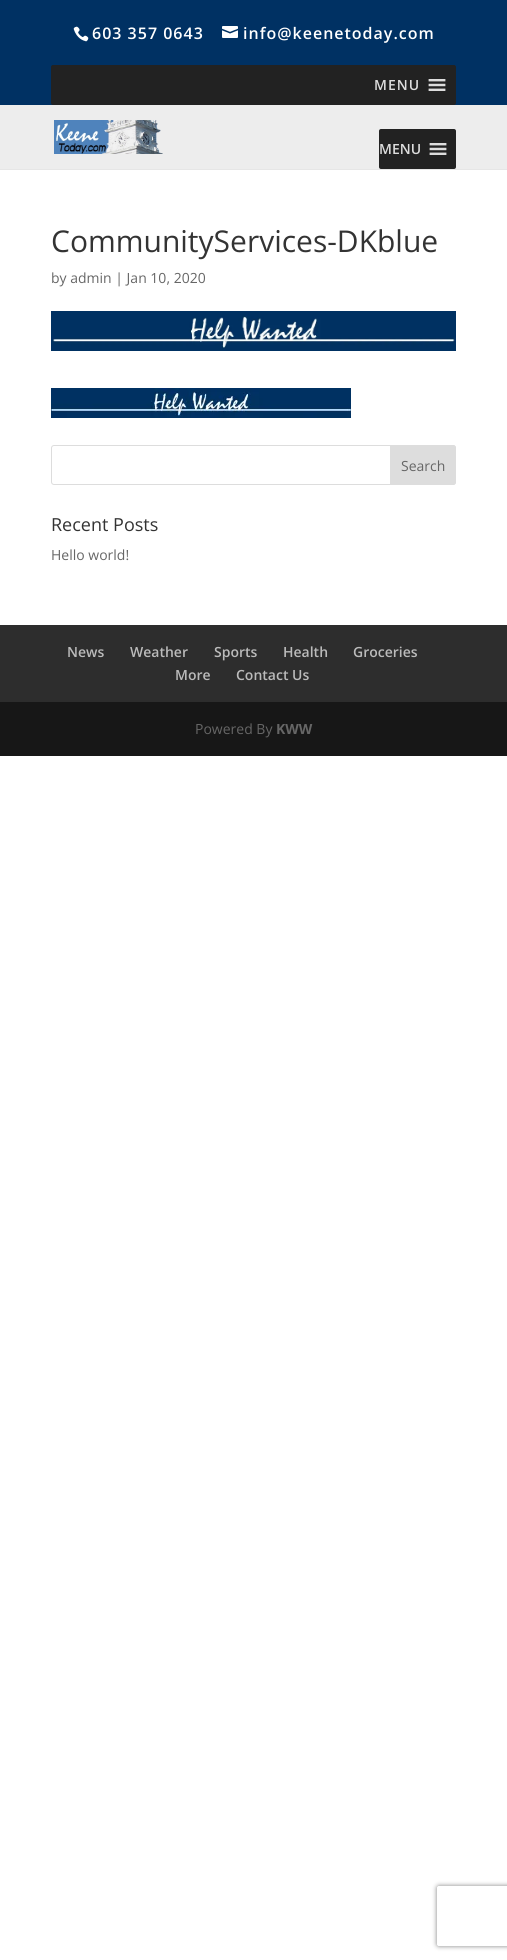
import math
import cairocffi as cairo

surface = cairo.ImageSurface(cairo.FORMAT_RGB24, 507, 1960)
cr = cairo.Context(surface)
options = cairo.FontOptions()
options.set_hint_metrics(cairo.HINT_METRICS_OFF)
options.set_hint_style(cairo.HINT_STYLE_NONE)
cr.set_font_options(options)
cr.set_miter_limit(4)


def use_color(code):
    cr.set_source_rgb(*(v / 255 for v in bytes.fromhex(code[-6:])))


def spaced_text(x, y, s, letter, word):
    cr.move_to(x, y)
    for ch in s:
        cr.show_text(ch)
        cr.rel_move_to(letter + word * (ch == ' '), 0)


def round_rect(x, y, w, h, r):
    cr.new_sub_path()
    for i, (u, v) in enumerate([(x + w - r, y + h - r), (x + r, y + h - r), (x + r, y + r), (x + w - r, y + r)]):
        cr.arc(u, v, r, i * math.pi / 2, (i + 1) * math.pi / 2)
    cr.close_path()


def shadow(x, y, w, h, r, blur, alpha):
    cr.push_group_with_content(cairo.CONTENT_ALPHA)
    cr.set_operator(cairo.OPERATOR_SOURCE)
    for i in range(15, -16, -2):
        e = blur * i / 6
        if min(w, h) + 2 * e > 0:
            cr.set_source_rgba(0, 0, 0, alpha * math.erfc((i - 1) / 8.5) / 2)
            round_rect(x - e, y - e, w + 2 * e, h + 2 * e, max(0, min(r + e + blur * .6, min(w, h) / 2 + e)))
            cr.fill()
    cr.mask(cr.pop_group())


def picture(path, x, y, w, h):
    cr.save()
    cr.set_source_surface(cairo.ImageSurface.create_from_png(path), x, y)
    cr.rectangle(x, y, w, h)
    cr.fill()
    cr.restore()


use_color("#ffffff")
cr.paint()
use_color("#003163")
cr.rectangle(0, 0, 507, 105)
cr.fill()
picture("img1.png", 73, 26, 16, 16)
cr.select_font_face("Open Sans SemiBold")
cr.set_font_size(16)
use_color("#ffffff")
spaced_text(92, 39, "603 357 0643", 1, 0)
picture("img2.png", 222, 26, 16, 12)
spaced_text(243, 39, "info@keenetoday.com", 1, 0)
use_color("#222222")
round_rect(51, 65, 405, 40, 2)
cr.fill()
cr.set_font_size(14)
use_color("#dddddd")
spaced_text(374, 90, "MENU", 1, 0)
picture("img3.png", 428, 79, 18, 12)
use_color("#e6e6e6")
cr.rectangle(0, 169, 507, 1)
cr.fill()
use_color("#ededed")
cr.rectangle(0, 105, 507, 64)
cr.fill()
picture("img4.png", 54, 120, 109, 34)
use_color("#222222")
round_rect(379, 129, 77, 40, 2)
cr.fill()
use_color("#dddddd")
cr.move_to(379, 154)
cr.show_text("MENU")
picture("img3.png", 429, 143, 18, 12)
cr.select_font_face("Open Sans")
cr.set_font_size(30)
use_color("#333333")
cr.move_to(51, 252)
cr.show_text("CommunityServices-DKblue")
cr.set_font_size(14)
use_color("#666666")
cr.move_to(51, 283)
cr.show_text("by admin | Jan 10, 2020")
picture("img5.png", 51, 311, 405, 40)
picture("img6.png", 51, 388, 300, 30)
round_rect(51.5, 445.5, 404, 39, 2.5)
use_color("#dddddd")
cr.set_line_width(1)
cr.stroke()
cr.new_path()
cr.move_to(390.5, 445.5)
cr.line_to(453, 445.5)
cr.curve_to(454.5, 445.5, 455.5, 446.5, 455.5, 448)
cr.line_to(455.5, 482)
cr.curve_to(455.5, 483.5, 454.5, 484.5, 453, 484.5)
cr.line_to(390.5, 484.5)
cr.close_path()
cr.fill_preserve()
cr.stroke()
use_color("#666666")
cr.move_to(401, 471)
cr.show_text("Search")
cr.set_font_size(18)
use_color("#333333")
cr.move_to(51, 531)
cr.show_text("Recent Posts")
cr.set_font_size(14)
use_color("#666666")
cr.move_to(51, 560)
cr.show_text("Hello world!")
use_color("#2d2d2d")
cr.rectangle(0, 625, 507, 77)
cr.fill()
cr.select_font_face("Open Sans SemiBold")
use_color("#bbbbbb")
cr.move_to(67, 657)
cr.show_text("News")
cr.move_to(130, 657)
cr.show_text("Weather")
cr.move_to(214, 657)
cr.show_text("Sports")
cr.move_to(283, 657)
cr.show_text("Health")
cr.move_to(353, 657)
cr.show_text("Groceries")
cr.move_to(175, 680)
cr.show_text("More")
cr.move_to(236, 680)
cr.show_text("Contact Us")
use_color("#171717")
cr.rectangle(0, 702, 507, 54)
cr.fill()
cr.select_font_face("Open Sans")
use_color("#666666")
cr.move_to(195, 734)
cr.show_text("Powered By")
cr.select_font_face("Open Sans", cairo.FONT_SLANT_NORMAL, cairo.FONT_WEIGHT_BOLD)
cr.move_to(276, 734)
cr.show_text("KWW")
cr.save()
cr.set_fill_rule(cairo.FILL_RULE_EVEN_ODD)
cr.new_path()
cr.move_to(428, 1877)
cr.line_to(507, 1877)
cr.line_to(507, 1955)
cr.line_to(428, 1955)
cr.close_path()
cr.move_to(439, 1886)
cr.line_to(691, 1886)
cr.curve_to(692, 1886, 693, 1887, 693, 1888)
cr.line_to(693, 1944)
cr.curve_to(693, 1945, 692, 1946, 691, 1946)
cr.line_to(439, 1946)
cr.curve_to(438, 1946, 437, 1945, 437, 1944)
cr.line_to(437, 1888)
cr.curve_to(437, 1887, 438, 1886, 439, 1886)
cr.close_path()
cr.clip()
use_color("#808080")
shadow(437, 1886, 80, 60, 2, 2.5, 1)
cr.restore()
surface.write_to_png("result.png")
